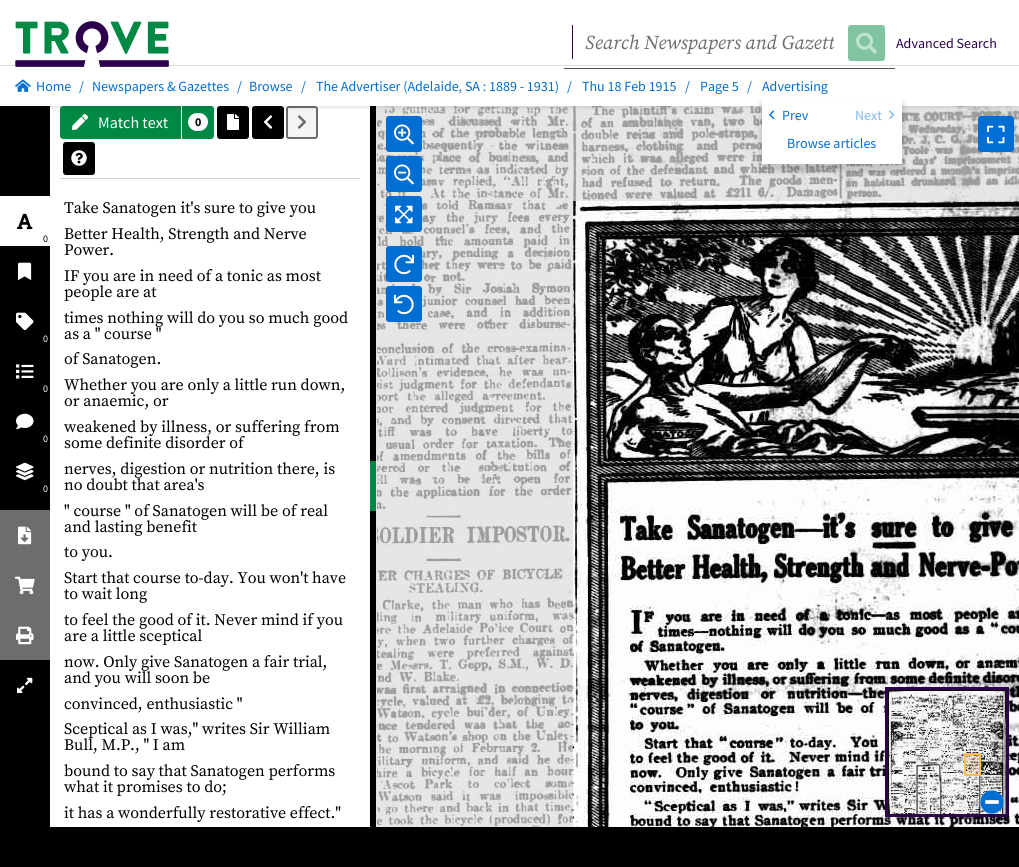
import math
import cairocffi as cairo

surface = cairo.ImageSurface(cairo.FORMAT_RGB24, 1019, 867)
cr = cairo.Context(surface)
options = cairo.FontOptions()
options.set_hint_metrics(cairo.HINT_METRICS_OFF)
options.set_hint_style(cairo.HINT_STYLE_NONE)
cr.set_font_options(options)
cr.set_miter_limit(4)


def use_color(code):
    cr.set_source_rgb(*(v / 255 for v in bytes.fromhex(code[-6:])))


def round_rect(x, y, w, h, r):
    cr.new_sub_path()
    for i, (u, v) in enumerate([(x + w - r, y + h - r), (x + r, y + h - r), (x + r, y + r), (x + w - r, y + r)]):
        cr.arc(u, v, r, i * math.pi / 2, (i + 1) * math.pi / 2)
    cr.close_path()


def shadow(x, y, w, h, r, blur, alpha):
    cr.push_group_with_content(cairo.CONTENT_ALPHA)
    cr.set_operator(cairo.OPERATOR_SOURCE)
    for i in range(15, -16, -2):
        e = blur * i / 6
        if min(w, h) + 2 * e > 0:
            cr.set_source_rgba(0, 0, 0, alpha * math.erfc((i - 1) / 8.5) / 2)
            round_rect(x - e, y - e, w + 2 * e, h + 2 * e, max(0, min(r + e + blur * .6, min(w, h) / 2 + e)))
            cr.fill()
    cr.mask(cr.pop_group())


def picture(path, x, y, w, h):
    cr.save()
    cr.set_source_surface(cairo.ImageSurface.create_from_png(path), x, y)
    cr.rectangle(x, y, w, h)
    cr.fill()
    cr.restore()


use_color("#ffffff")
cr.paint()
use_color("#000000")
cr.rectangle(0, 106, 50, 721)
cr.fill()
use_color("#008944")
cr.new_path()
cr.move_to(63, 107)
cr.line_to(180, 107)
cr.line_to(180, 138)
cr.line_to(63, 138)
cr.curve_to(62, 138, 61, 137, 61, 136)
cr.line_to(61, 109)
cr.curve_to(61, 108, 62, 107, 63, 107)
cr.close_path()
cr.fill_preserve()
cr.stroke()
picture("img16.png", 72, 113, 17, 17)
cr.new_path()
cr.move_to(183, 107)
cr.line_to(211, 107)
cr.curve_to(212, 107, 213, 108, 213, 109)
cr.line_to(213, 136)
cr.curve_to(213, 137, 212, 138, 211, 138)
cr.line_to(183, 138)
cr.close_path()
cr.fill_preserve()
cr.stroke()
use_color("#ffffff")
round_rect(188, 113, 20, 18, 9)
cr.fill()
use_color("#000000")
round_rect(218, 107, 30, 31, 2)
cr.fill_preserve()
cr.stroke()
picture("img17.png", 227, 114, 12, 16)
round_rect(253, 107, 30, 31, 2)
cr.fill_preserve()
cr.stroke()
use_color("#f4f4f4")
round_rect(287, 107, 30, 31, 2)
cr.fill_preserve()
use_color("#6d6d6d")
cr.stroke()
use_color("#000000")
cr.rectangle(370, 106, 6, 721)
cr.fill()
use_color("#e3e3e3")
cr.rectangle(376, 106, 1, 721)
cr.fill()
picture("img21.png", 377, 106, 37, 91)
picture("img22.png", 414, 106, 256, 91)
picture("img23.png", 670, 106, 256, 91)
picture("img24.png", 926, 106, 93, 91)
picture("img25.png", 377, 197, 37, 256)
picture("img26.png", 414, 197, 256, 256)
picture("img27.png", 670, 197, 256, 256)
picture("img28.png", 926, 197, 93, 256)
cr.set_source_rgba(0.867, 0.867, 0.867, 0.7)
cr.rectangle(377, 106, 642, 95)
cr.fill()
use_color("#000000")
shadow(0, 68, 1019, 40, 0, 2, 0.1)
use_color("#dddddd")
cr.rectangle(0, 65, 1019, 1)
cr.fill()
use_color("#ffffff")
cr.rectangle(15, 65, 154, 1)
cr.fill()
cr.rectangle(0, 66, 1019, 40)
cr.fill()
picture("img1.png", 15, 21, 154, 46)
use_color("#2d004b")
cr.rectangle(572, 25, 1, 34)
cr.fill()
cr.save()
cr.rectangle(585, 29, 249, 27)
cr.clip()
cr.select_font_face("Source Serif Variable", cairo.FONT_SLANT_ITALIC)
cr.set_font_size(19.6)
use_color("#6d6d6d")
cr.move_to(585, 49)
cr.show_text("Search Newspapers and Gazett")
cr.restore()
use_color("#80c4a2")
round_rect(849, 26, 35, 34, 2)
cr.fill_preserve()
cr.stroke()
picture("img2.png", 856, 32, 21, 22)
cr.select_font_face("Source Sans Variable")
cr.set_font_size(14)
use_color("#2d004b")
cr.move_to(896, 48)
cr.show_text("Advanced Search")
use_color("#535353")
cr.rectangle(564, 68, 331, 1)
cr.fill()
picture("img3.png", 15, 79, 16, 13)
use_color("#016ed3")
cr.move_to(36, 91)
cr.show_text("Home")
cr.move_to(79, 91)
cr.show_text("/")
cr.move_to(92, 91)
cr.show_text("Newspapers & Gazettes")
cr.move_to(237, 91)
cr.show_text("/")
cr.move_to(249, 91)
cr.show_text("Browse")
cr.move_to(301, 91)
cr.show_text("/")
cr.move_to(316, 91)
cr.show_text("The Advertiser (Adelaide, SA : 1889 - 1931)")
cr.move_to(567, 91)
cr.show_text("/")
cr.move_to(582, 91)
cr.show_text("Thu 18 Feb 1915")
cr.move_to(685, 91)
cr.show_text("/")
cr.move_to(700, 91)
cr.show_text("Page 5")
cr.move_to(747, 91)
cr.show_text("/")
cr.move_to(762, 91)
cr.show_text("Advertising")
use_color("#000000")
shadow(760, 103, 144, 69, 0, 3, 0.15)
use_color("#ffffff")
cr.rectangle(762, 99, 140, 65)
cr.fill()
picture("img4.png", 769, 110, 6, 10)
use_color("#016ed3")
cr.move_to(782, 120)
cr.show_text("Prev")
use_color("#80b7e9")
cr.move_to(855, 120)
cr.show_text("Next")
picture("img5.png", 889, 110, 6, 9)
use_color("#016ed3")
cr.move_to(787, 148)
cr.show_text("Browse articles")
use_color("#ffffff")
cr.rectangle(0, 196, 50, 50)
cr.fill()
picture("img6.png", 17, 213, 16, 17)
cr.set_font_size(10)
use_color("#000000")
cr.move_to(43, 242)
cr.show_text("0")
picture("img7.png", 18, 262, 14, 19)
picture("img8.png", 16, 312, 18, 19)
use_color("#ffffff")
cr.move_to(43, 342)
cr.show_text("0")
picture("img9.png", 16, 364, 18, 15)
cr.move_to(43, 392)
cr.show_text("0")
picture("img10.png", 16, 413, 18, 17)
cr.move_to(43, 442)
cr.show_text("0")
picture("img11.png", 16, 462, 18, 19)
cr.move_to(43, 492)
cr.show_text("0")
use_color("#6d6d6d")
cr.rectangle(0, 510, 50, 150)
cr.fill()
picture("img12.png", 18, 526, 14, 19)
picture("img13.png", 15, 576, 20, 19)
picture("img14.png", 16, 626, 18, 19)
picture("img15.png", 17, 677, 16, 17)
cr.set_font_size(16)
use_color("#ffffff")
cr.move_to(98, 128)
cr.show_text("Match text")
cr.select_font_face("Source Sans Variable", cairo.FONT_SLANT_NORMAL, cairo.FONT_WEIGHT_BOLD)
cr.set_font_size(12)
use_color("#000000")
cr.move_to(195, 126)
cr.show_text("0")
picture("img18.png", 263, 115, 10, 14)
picture("img19.png", 297, 115, 9, 14)
round_rect(64, 143, 30, 31, 2)
cr.fill_preserve()
cr.stroke()
picture("img20.png", 71, 150, 16, 16)
use_color("#d1d1d1")
cr.rectangle(60, 178, 300, 1)
cr.fill()
cr.select_font_face("Source Serif Variable")
cr.set_font_size(16)
use_color("#000000")
cr.move_to(64, 213)
cr.show_text("Take Sanatogen it's sure to give you")
cr.move_to(64, 239)
cr.show_text("Better Health, Strength and Nerve")
cr.move_to(64, 255)
cr.show_text("Power.")
cr.move_to(64, 281)
cr.show_text("IF you are in need of a tonic as most")
cr.move_to(64, 297)
cr.show_text("people are at")
cr.move_to(64, 323)
cr.show_text("times nothing will do you so much good")
cr.move_to(64, 339)
cr.show_text("as a \" course \"")
cr.move_to(64, 364)
cr.show_text("of Sanatogen.")
cr.move_to(64, 390)
cr.show_text("Whether you are only a little run down,")
cr.move_to(64, 406)
cr.show_text("or anaemic, or")
cr.move_to(64, 432)
cr.show_text("weakened by illness, or suffering from")
cr.move_to(64, 448)
cr.show_text("some definite disorder of")
cr.move_to(64, 474)
cr.show_text("nerves, digestion or nutrition there, is")
cr.move_to(64, 490)
cr.show_text("no doubt that area's")
cr.move_to(64, 516)
cr.show_text("\" course \" of Sanatogen will be of real")
cr.move_to(64, 532)
cr.show_text("and lasting benefit")
cr.move_to(64, 557)
cr.show_text("to you.")
cr.move_to(64, 583)
cr.show_text("Start that course to-day. You won't have")
cr.move_to(64, 599)
cr.show_text("to wait long")
cr.move_to(64, 625)
cr.show_text("to feel the good of it. Never mind if you")
cr.move_to(64, 641)
cr.show_text("are a little sceptical")
cr.move_to(64, 667)
cr.show_text("now. Only give Sanatogen a fair trial,")
cr.move_to(64, 683)
cr.show_text("and you will soon be")
cr.move_to(64, 709)
cr.show_text("convinced, enthusiastic \"")
cr.move_to(64, 734)
cr.show_text("Sceptical as I was,\" writes Sir William")
cr.move_to(64, 750)
cr.show_text("Bull, M.P., \" I am")
cr.move_to(64, 776)
cr.show_text("bound to say that Sanatogen performs")
cr.move_to(64, 792)
cr.show_text("what it promises to do;")
cr.move_to(64, 818)
cr.show_text("it has a wonderfully restorative effect.\"")
use_color("#008944")
cr.rectangle(370, 461, 6, 50)
cr.fill()
picture("img29.png", 377, 453, 37, 256)
picture("img30.png", 414, 453, 256, 256)
picture("img33.png", 377, 709, 37, 118)
picture("img34.png", 414, 709, 256, 118)
cr.set_source_rgba(0.867, 0.867, 0.867, 0.7)
cr.rectangle(377, 201, 196, 626)
cr.fill()
picture("img31.png", 670, 453, 256, 256)
picture("img32.png", 926, 453, 93, 256)
picture("img35.png", 670, 709, 256, 118)
picture("img36.png", 926, 709, 93, 118)
use_color("#016ed3")
round_rect(387, 117, 34, 34, 2)
cr.fill_preserve()
cr.stroke()
picture("img37.png", 394, 124, 20, 21)
round_rect(979, 117, 34, 34, 2)
cr.fill_preserve()
cr.stroke()
picture("img38.png", 987, 125, 18, 19)
round_rect(387, 157, 34, 34, 2)
cr.fill_preserve()
cr.stroke()
picture("img39.png", 394, 164, 20, 21)
round_rect(387, 197, 34, 34, 2)
cr.fill_preserve()
cr.stroke()
picture("img40.png", 395, 205, 18, 19)
round_rect(387, 247, 34, 34, 2)
cr.fill_preserve()
cr.stroke()
picture("img41.png", 394, 254, 20, 21)
round_rect(387, 287, 34, 34, 2)
cr.fill_preserve()
cr.stroke()
picture("img42.png", 394, 294, 20, 21)
cr.rectangle(886.5, 688.5, 121, 127)
use_color("#2d004b")
cr.set_line_width(3)
cr.stroke()
picture("img43.png", 888, 690, 118, 124)
cr.set_source_rgba(1, 0.741, 0.298, 0.1)
cr.rectangle(965, 754, 15, 21)
cr.fill_preserve()
use_color("#ffbd4c")
cr.set_line_width(2)
cr.stroke()
cr.set_source_rgba(1, 0.741, 0.298, 0.1)
cr.rectangle(966, 755, 13, 19)
cr.fill()
use_color("#ffffff")
cr.new_path()
cr.move_to(984, 794)
cr.curve_to(994.5, 783, 1011, 799.5, 1000, 810)
cr.curve_to(989.5, 821, 973, 804.5, 984, 794)
cr.close_path()
cr.fill()
picture("img44.png", 980, 790, 24, 24)
use_color("#000000")
cr.rectangle(0, 827, 1019, 40)
cr.fill()
surface.write_to_png("result.png")
